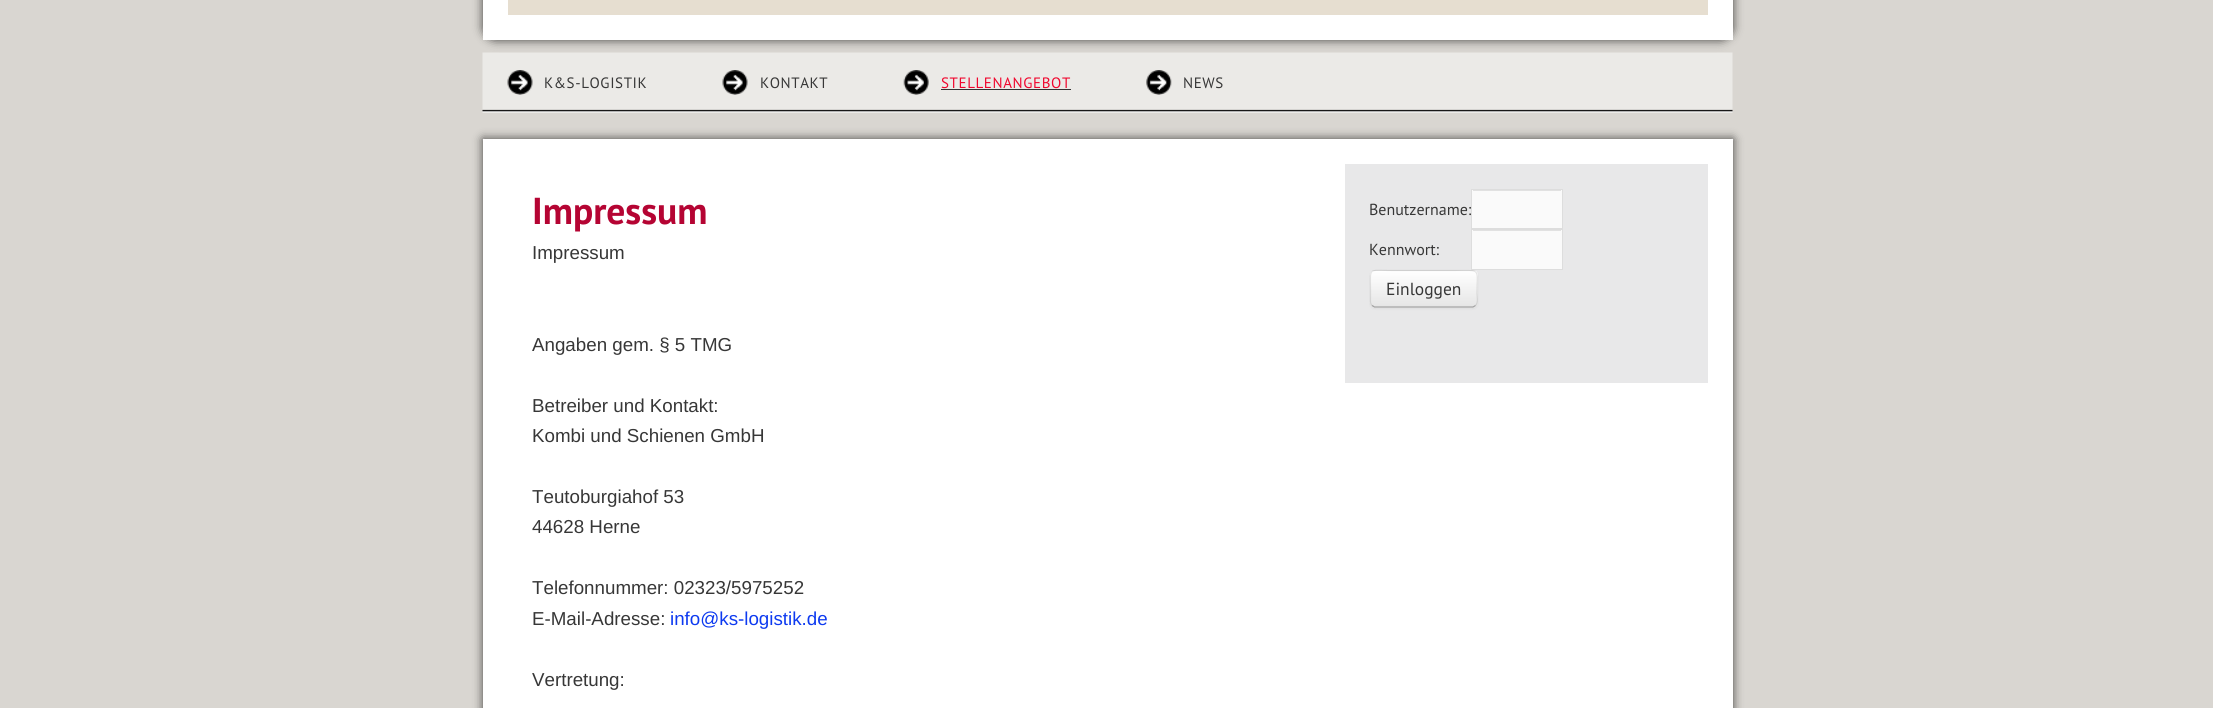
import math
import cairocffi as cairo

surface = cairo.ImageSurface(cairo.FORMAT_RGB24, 2213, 708)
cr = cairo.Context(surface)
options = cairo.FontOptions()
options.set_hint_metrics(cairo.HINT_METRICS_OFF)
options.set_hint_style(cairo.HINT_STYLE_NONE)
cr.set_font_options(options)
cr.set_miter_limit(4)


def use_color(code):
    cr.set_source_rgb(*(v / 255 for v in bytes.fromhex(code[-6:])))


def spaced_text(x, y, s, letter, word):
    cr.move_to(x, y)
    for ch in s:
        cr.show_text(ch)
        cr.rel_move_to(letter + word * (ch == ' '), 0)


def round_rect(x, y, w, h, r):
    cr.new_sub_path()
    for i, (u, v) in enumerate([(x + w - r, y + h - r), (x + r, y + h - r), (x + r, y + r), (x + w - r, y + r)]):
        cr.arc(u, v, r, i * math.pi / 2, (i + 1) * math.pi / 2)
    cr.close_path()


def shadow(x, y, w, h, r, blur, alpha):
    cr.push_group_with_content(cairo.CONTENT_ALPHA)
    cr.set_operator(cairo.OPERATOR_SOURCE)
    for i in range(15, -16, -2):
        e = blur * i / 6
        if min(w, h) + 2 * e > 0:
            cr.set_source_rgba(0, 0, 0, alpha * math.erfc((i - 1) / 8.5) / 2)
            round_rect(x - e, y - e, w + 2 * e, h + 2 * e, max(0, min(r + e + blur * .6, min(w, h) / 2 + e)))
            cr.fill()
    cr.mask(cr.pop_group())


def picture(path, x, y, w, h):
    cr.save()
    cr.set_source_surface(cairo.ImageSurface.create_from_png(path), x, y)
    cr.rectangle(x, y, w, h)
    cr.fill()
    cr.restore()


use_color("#d9d6d1")
cr.paint()
picture("img1.png", 482, 52, 1251, 61)
use_color("#000000")
shadow(483, -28, 1250, 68, 13, 5, 0.7)
use_color("#ffffff")
cr.rectangle(483, 0, 1250, 40)
cr.fill()
use_color("#e6ded0")
cr.rectangle(508, 0, 1200, 15)
cr.fill()
picture("img2.png", 507, 70, 26, 25)
cr.select_font_face("PT Sans")
cr.set_font_size(15)
use_color("#373737")
spaced_text(544, 88, "K&S-LOGISTIK", 0.6, 0)
picture("img2.png", 722, 70, 26, 25)
spaced_text(760, 88, "KONTAKT", 0.6, 0)
picture("img3.png", 903, 70, 26, 25)
use_color("#f0062d")
spaced_text(941, 88, "STELLENANGEBOT", 0.6, 0)
use_color("#333333")
cr.rectangle(941, 89, 130, 1)
cr.fill()
picture("img4.png", 1146, 70, 26, 25)
use_color("#373737")
spaced_text(1183, 88, "NEWS", 0.6, 0)
use_color("#000000")
shadow(483, 139, 1250, 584, 0, 5, 0.7)
use_color("#ffffff")
cr.rectangle(483, 139, 1250, 569)
cr.fill()
cr.select_font_face("PT Sans", cairo.FONT_SLANT_NORMAL, cairo.FONT_WEIGHT_BOLD)
cr.set_font_size(37.5)
use_color("#b50433")
cr.move_to(532, 224)
cr.show_text("Impressum")
cr.select_font_face("Liberation Sans")
cr.set_font_size(18.75)
use_color("#373737")
cr.move_to(532, 259)
cr.show_text("Impressum")
cr.move_to(532, 351)
cr.show_text("Angaben gem. § 5 TMG")
cr.move_to(532, 412)
cr.show_text("Betreiber und Kontakt:")
cr.move_to(532, 442)
cr.show_text("Kombi und Schienen GmbH")
cr.move_to(532, 503)
cr.show_text("Teutoburgiahof 53")
cr.move_to(532, 533)
cr.show_text("44628 Herne")
cr.move_to(532, 594)
cr.show_text("Telefonnummer: 02323/5975252")
cr.move_to(532, 625)
cr.show_text("E-Mail-Adresse:")
use_color("#0d3af0")
cr.move_to(670, 625)
cr.show_text("info@ks-logistik.de")
use_color("#373737")
cr.move_to(532, 686)
cr.show_text("Vertretung:")
use_color("#e8e8e9")
cr.rectangle(1345, 164, 363, 219)
cr.fill()
cr.select_font_face("PT Sans")
cr.set_font_size(16)
use_color("#373737")
cr.move_to(1369, 215)
cr.show_text("Benutzername:")
use_color("#fafafa")
cr.rectangle(1472, 190, 90, 38)
cr.fill()
use_color("#e1e1e1")
cr.rectangle(1473, 190, 88, 1)
cr.fill()
cr.rectangle(1471.5, 189.5, 91, 39)
use_color("#dddddd")
cr.set_line_width(1)
cr.stroke()
use_color("#373737")
cr.move_to(1369, 255)
cr.show_text("Kennwort:")
use_color("#fafafa")
cr.rectangle(1472, 230, 90, 39)
cr.fill()
use_color("#e1e1e1")
cr.rectangle(1473, 230, 88, 1)
cr.fill()
cr.rectangle(1471.5, 229.5, 91, 40)
use_color("#dddddd")
cr.stroke()
use_color("#000000")
shadow(1370, 271, 108, 38, 5, 1, 0.05)
use_color("#e6e6e6")
round_rect(1370, 270, 108, 38, 5)
cr.fill()
cr.save()
round_rect(1370, 270, 108, 38, 5)
cr.clip()
gradient = cairo.LinearGradient(1424, 271, 1424, 306)
gradient.add_color_stop_rgba(0, 1, 1, 1, 1)
gradient.add_color_stop_rgba(1, 0.902, 0.902, 0.902, 1)
cr.set_source(gradient)
cr.rectangle(1370, 271, 108, 35)
cr.fill()
cr.restore()
cr.set_source_rgba(1, 1, 1, 0.2)
cr.new_path()
cr.move_to(1375, 272)
cr.line_to(1472, 272)
cr.curve_to(1475, 272, 1476, 274, 1476, 276)
cr.curve_to(1476, 267, 1460, 271, 1456, 271)
cr.line_to(1391, 271)
cr.curve_to(1387, 271, 1371, 267, 1371, 276)
cr.curve_to(1371, 274, 1373, 272, 1375, 272)
cr.close_path()
cr.fill()
cr.new_path()
cr.move_to(1475.5, 305.5)
cr.line_to(1473, 307)
cr.line_to(1374.5, 307)
cr.line_to(1372, 305.5)
use_color("#a2a2a2")
cr.set_line_width(1.2)
cr.stroke()
cr.new_path()
cr.move_to(1372, 305.5)
cr.curve_to(1370, 303.5, 1370.5, 300.5, 1370.5, 298)
cr.line_to(1370.5, 289)
cr.curve_to(1370.5, 267, 1368, 270.5, 1391, 270.5)
cr.line_to(1456, 270.5)
cr.curve_to(1481.5, 270.5, 1477, 268, 1477, 293.5)
cr.curve_to(1477, 296.5, 1478.5, 303, 1475.5, 305.5)
cr.set_source_rgba(0, 0, 0, 0.1)
cr.stroke()
cr.set_font_size(17.5)
use_color("#373737")
cr.move_to(1386, 295)
cr.show_text("Einloggen")
surface.write_to_png("result.png")
